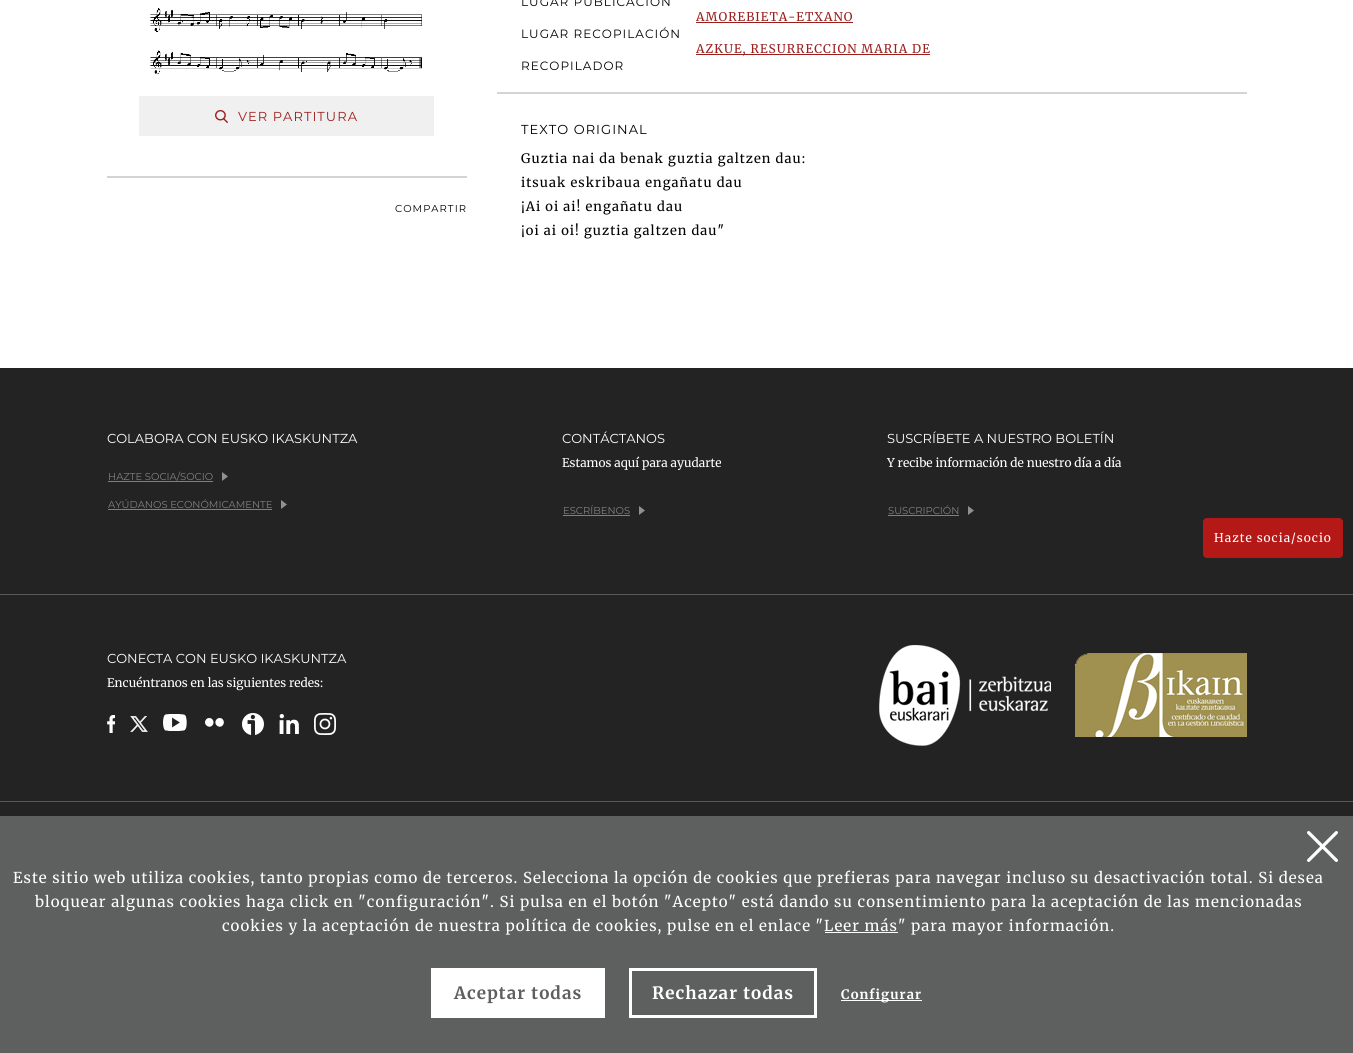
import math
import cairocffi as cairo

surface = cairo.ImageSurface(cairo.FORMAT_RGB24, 1353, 1053)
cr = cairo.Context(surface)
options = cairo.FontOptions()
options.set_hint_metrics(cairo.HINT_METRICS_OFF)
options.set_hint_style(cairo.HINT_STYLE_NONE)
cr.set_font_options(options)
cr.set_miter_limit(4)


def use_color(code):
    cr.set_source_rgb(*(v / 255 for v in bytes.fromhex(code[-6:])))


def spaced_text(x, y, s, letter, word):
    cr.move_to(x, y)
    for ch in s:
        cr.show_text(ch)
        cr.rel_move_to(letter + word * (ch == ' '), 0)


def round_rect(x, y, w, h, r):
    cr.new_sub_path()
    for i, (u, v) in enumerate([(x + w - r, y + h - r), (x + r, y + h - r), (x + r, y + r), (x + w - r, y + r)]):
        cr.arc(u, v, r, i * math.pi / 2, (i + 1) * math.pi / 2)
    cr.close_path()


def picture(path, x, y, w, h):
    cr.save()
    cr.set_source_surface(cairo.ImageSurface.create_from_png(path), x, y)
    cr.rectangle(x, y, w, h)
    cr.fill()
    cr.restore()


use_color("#ffffff")
cr.paint()
picture("img1.png", 150, 8, 272, 66)
use_color("#f0f0f0")
cr.rectangle(139, 96, 295, 40)
cr.fill()
picture("img2.png", 215, 110, 13, 13)
cr.select_font_face("Montserrat")
cr.set_font_size(13)
use_color("#9b1f1d")
spaced_text(238, 121, "VER PARTITURA", 1.04, 0)
use_color("#d4d4d4")
cr.rectangle(107, 176, 360, 2)
cr.fill()
cr.set_font_size(10)
use_color("#000000")
spaced_text(395, 212, "COMPARTIR", 1.04, 0)
cr.set_font_size(12)
spaced_text(521, 6, "LUGAR PUBLICACIÓN", 1.04, 0)
cr.select_font_face("Merriweather")
use_color("#9b1f1d")
spaced_text(696, 21, "AMOREBIETA-ETXANO", 1.04, 0)
cr.rectangle(696, 22, 157, 1)
cr.fill()
cr.select_font_face("Montserrat")
use_color("#000000")
spaced_text(521, 38, "LUGAR RECOPILACIÓN", 1.04, 0)
use_color("#9b1f1d")
cr.rectangle(696, 54, 234, 1)
cr.fill()
cr.select_font_face("Merriweather")
spaced_text(696, 53, "AZKUE, RESURRECCION MARIA DE", 1.04, 0)
cr.select_font_face("Montserrat")
use_color("#000000")
spaced_text(521, 70, "RECOPILADOR", 1.04, 0)
use_color("#d4d4d4")
cr.rectangle(497, 92, 750, 2)
cr.fill()
cr.set_font_size(13)
use_color("#000000")
spaced_text(521, 134, "TEXTO ORIGINAL", 1.04, 0)
cr.select_font_face("Merriweather")
spaced_text(521, 163, "Guztia nai da benak guztia galtzen dau:", 1.04, 0)
spaced_text(521, 187, "itsuak eskribaua engañatu dau", 1.04, 0)
spaced_text(521, 211, "¡Ai oi ai! engañatu dau", 1.04, 0)
spaced_text(521, 235, "¡oi ai oi! guztia galtzen dau\"", 1.04, 0)
use_color("#232323")
cr.rectangle(0, 368, 1353, 448)
cr.fill()
use_color("#585858")
cr.rectangle(0, 594, 1353, 1)
cr.fill()
cr.select_font_face("Montserrat")
use_color("#ffffff")
cr.move_to(107, 443)
cr.show_text("COLABORA CON EUSKO IKASKUNTZA")
cr.set_font_size(10)
use_color("#808080")
cr.move_to(108, 480)
cr.show_text("HAZTE SOCIA/SOCIO")
cr.rectangle(108, 481, 105, 1)
cr.fill()
use_color("#919191")
cr.set_fill_rule(cairo.FILL_RULE_EVEN_ODD)
cr.new_path()
cr.move_to(228, 476.5)
cr.line_to(222, 481)
cr.line_to(222, 472)
cr.close_path()
cr.fill()
use_color("#808080")
cr.move_to(108, 508)
cr.show_text("AYÚDANOS ECONÓMICAMENTE")
cr.rectangle(108, 509, 164, 1)
cr.fill()
use_color("#919191")
cr.new_path()
cr.move_to(287, 504.5)
cr.line_to(281, 509)
cr.line_to(281, 500)
cr.close_path()
cr.fill()
cr.set_font_size(13)
use_color("#ffffff")
cr.move_to(562, 443)
cr.show_text("CONTÁCTANOS")
cr.select_font_face("Merriweather")
cr.set_font_size(12)
cr.move_to(562, 467)
cr.show_text("Estamos aquí para ayudarte")
cr.select_font_face("Montserrat")
cr.set_font_size(10)
use_color("#808080")
cr.move_to(563, 514)
cr.show_text("ESCRÍBENOS")
cr.rectangle(563, 515, 67, 1)
cr.fill()
use_color("#919191")
cr.new_path()
cr.move_to(645, 510.5)
cr.line_to(639, 515)
cr.line_to(639, 506)
cr.close_path()
cr.fill()
cr.set_font_size(13)
use_color("#ffffff")
cr.move_to(887, 443)
cr.show_text("SUSCRÍBETE A NUESTRO BOLETÍN")
cr.select_font_face("Merriweather")
cr.set_font_size(12)
cr.move_to(887, 467)
cr.show_text("Y recibe información de nuestro día a día")
cr.select_font_face("Montserrat")
cr.set_font_size(10)
use_color("#808080")
cr.move_to(888, 514)
cr.show_text("SUSCRIPCIÓN")
cr.rectangle(888, 515, 71, 1)
cr.fill()
use_color("#919191")
cr.new_path()
cr.move_to(974, 510.5)
cr.line_to(968, 515)
cr.line_to(968, 506)
cr.close_path()
cr.fill()
use_color("#585858")
cr.rectangle(0, 801, 1353, 1)
cr.fill()
cr.set_font_size(13)
use_color("#ffffff")
cr.move_to(107, 663)
cr.show_text("CONECTA CON EUSKO IKASKUNTZA")
cr.select_font_face("Merriweather")
cr.set_font_size(12)
cr.move_to(107, 687)
cr.show_text("Encuéntranos en las siguientes redes:")
picture("img3.png", 107, 715, 8, 18)
picture("img4.png", 130, 716, 18, 16)
picture("img5.png", 163, 714, 24, 17)
picture("img6.png", 205, 718, 19, 9)
picture("img7.png", 242, 713, 22, 22)
picture("img8.png", 279, 714, 20, 20)
picture("img9.png", 314, 713, 22, 22)
picture("img10.png", 879, 645, 172, 101)
picture("img11.png", 1075, 653, 172, 84)
use_color("#b51917")
round_rect(1203, 518, 140, 40, 4)
cr.fill()
use_color("#ffffff")
spaced_text(1214, 542, "Hazte socia/socio", 1.04, 0)
use_color("#5e5f5f")
cr.rectangle(0, 816, 1353, 237)
cr.fill()
picture("img12.png", 1307, 831, 31, 31)
cr.set_font_size(15)
use_color("#ffffff")
spaced_text(13, 883, "Este sitio web utiliza cookies, tanto propias como de terceros. Selecciona la opción de cookies que prefieras para navegar incluso su desactivación total. Si desea", 1.04, 0)
spaced_text(35, 907, "bloquear algunas cookies haga click en \"configuración\". Si pulsa en el botón \"Acepto\" está dando su consentimiento para la aceptación de las mencionadas", 1.04, 0)
spaced_text(222, 931, "cookies y la aceptación de nuestra política de cookies, pulse en el enlace \"Leer más\" para mayor información.", 1.04, 0)
cr.rectangle(825, 932, 73, 1)
cr.fill()
cr.rectangle(431, 968, 174, 50)
cr.fill()
cr.select_font_face("Merriweather", cairo.FONT_SLANT_NORMAL, cairo.FONT_WEIGHT_BOLD)
cr.set_font_size(17)
use_color("#5e5f5f")
spaced_text(454, 999, "Aceptar todas", 1.04, 0)
cr.rectangle(630.5, 969.5, 185, 47)
use_color("#ffffff")
cr.set_line_width(3)
cr.stroke()
spaced_text(652, 999, "Rechazar todas", 1.04, 0)
cr.rectangle(841, 1000, 81, 1)
cr.fill()
cr.set_font_size(13)
spaced_text(841, 999, "Configurar", 1.04, 0)
surface.write_to_png("result.png")
